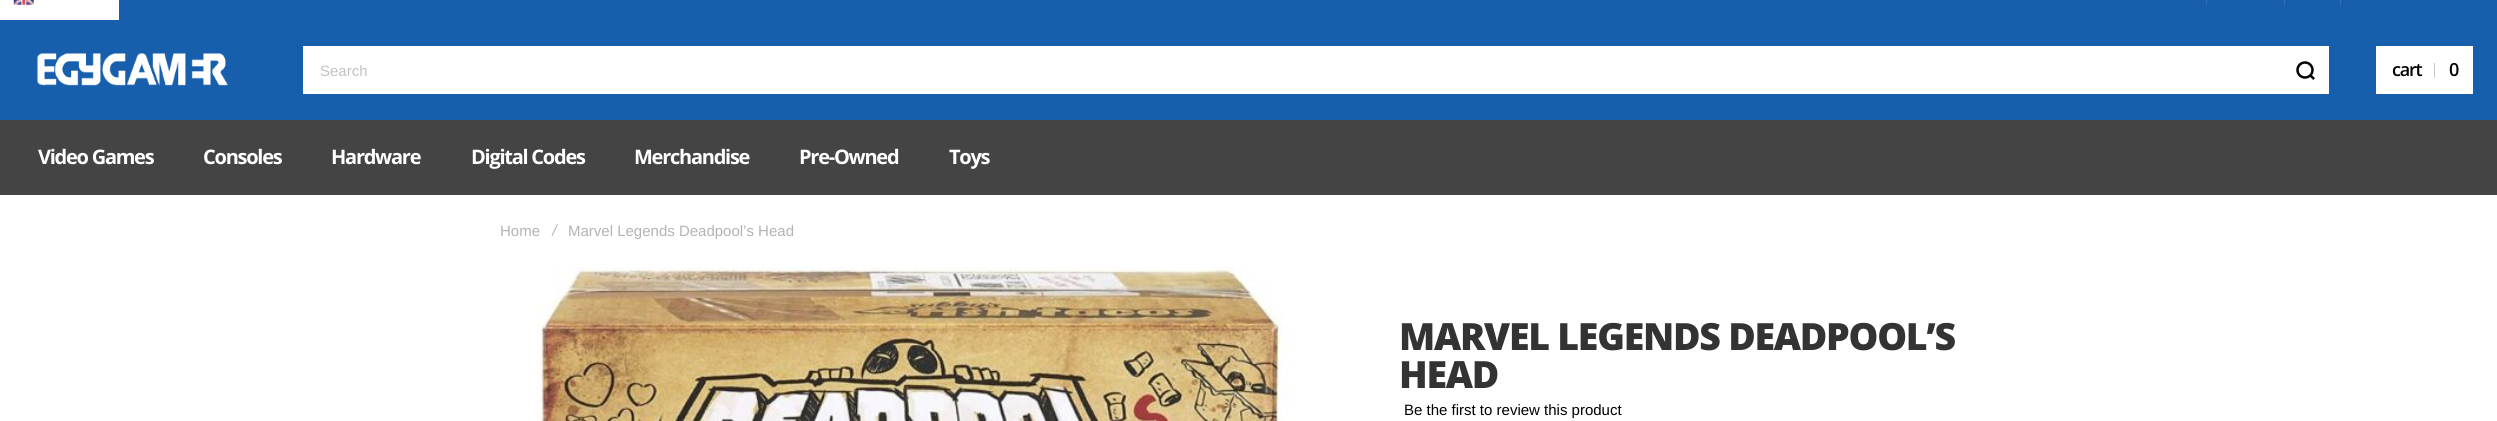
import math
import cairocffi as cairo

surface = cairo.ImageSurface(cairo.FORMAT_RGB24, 2497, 421)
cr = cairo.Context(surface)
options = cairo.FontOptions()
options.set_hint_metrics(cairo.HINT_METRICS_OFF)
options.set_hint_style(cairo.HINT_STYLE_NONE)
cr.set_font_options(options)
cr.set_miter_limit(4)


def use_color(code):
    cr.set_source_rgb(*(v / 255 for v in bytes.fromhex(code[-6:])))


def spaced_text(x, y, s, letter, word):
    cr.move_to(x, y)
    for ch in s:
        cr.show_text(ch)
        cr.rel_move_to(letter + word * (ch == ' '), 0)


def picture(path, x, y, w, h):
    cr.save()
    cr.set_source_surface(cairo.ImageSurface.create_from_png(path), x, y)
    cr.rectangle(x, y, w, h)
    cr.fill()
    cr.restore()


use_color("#ffffff")
cr.paint()
use_color("#175fad")
cr.rectangle(0, 0, 2497, 120)
cr.fill()
use_color("#ffffff")
cr.rectangle(0, 0, 119, 20)
cr.fill()
picture("img1.png", 13, 0, 21, 5)
use_color("#3171b6")
cr.rectangle(2206, 0, 1, 5)
cr.fill()
cr.rectangle(2284, 0, 1, 5)
cr.fill()
cr.rectangle(2340, 0, 1, 5)
cr.fill()
picture("img2.png", 37, 53, 191, 33)
use_color("#ffffff")
cr.rectangle(303, 46, 2026, 48)
cr.fill()
cr.select_font_face("Liberation Sans")
cr.set_font_size(15)
use_color("#c2c2c2")
cr.move_to(320, 76)
cr.show_text("Search")
picture("img3.png", 2296, 61, 19, 19)
use_color("#ffffff")
cr.rectangle(2376, 46, 97, 48)
cr.fill()
cr.select_font_face("Open Sans SemiBold")
cr.set_font_size(18)
use_color("#000000")
spaced_text(2392, 76, "cart", -1.25, 0)
use_color("#c9c9c9")
cr.rectangle(2434, 63, 1, 15)
cr.fill()
use_color("#000000")
spaced_text(2449, 76, "0", -1.25, 0)
use_color("#444444")
cr.rectangle(0, 120, 2497, 75)
cr.fill()
cr.select_font_face("Open Sans", cairo.FONT_SLANT_NORMAL, cairo.FONT_WEIGHT_BOLD)
cr.set_font_size(20)
use_color("#ffffff")
spaced_text(38, 164, "Video Games", -1.25, 0)
spaced_text(203, 164, "Consoles", -1.25, 0)
spaced_text(331, 164, "Hardware", -1.25, 0)
spaced_text(471, 164, "Digital Codes", -1.25, 0)
spaced_text(634, 164, "Merchandise", -1.25, 0)
spaced_text(799, 164, "Pre-Owned", -1.25, 0)
spaced_text(949, 164, "Toys", -1.25, 0)
cr.select_font_face("Liberation Sans")
cr.set_font_size(15)
use_color("#b3b3b3")
cr.move_to(500, 236)
cr.show_text("Home")
cr.new_path()
cr.move_to(557, 224)
cr.line_to(558, 224.5)
cr.line_to(552.5, 236)
cr.line_to(551.5, 235.5)
cr.close_path()
cr.fill()
cr.move_to(568, 236)
cr.show_text("Marvel Legends Deadpool’s Head")
picture("img4.png", 536, 267, 755, 154)
cr.select_font_face("Open Sans ExtraBold")
cr.set_font_size(37.5)
use_color("#333333")
spaced_text(1399, 350, "MARVEL LEGENDS DEADPOOL’S", -1.25, 0)
spaced_text(1399, 388, "HEAD", -1.25, 0)
cr.select_font_face("Liberation Sans")
cr.set_font_size(15)
use_color("#000000")
cr.move_to(1404, 415)
cr.show_text("Be the first to review this product")
surface.write_to_png("result.png")
